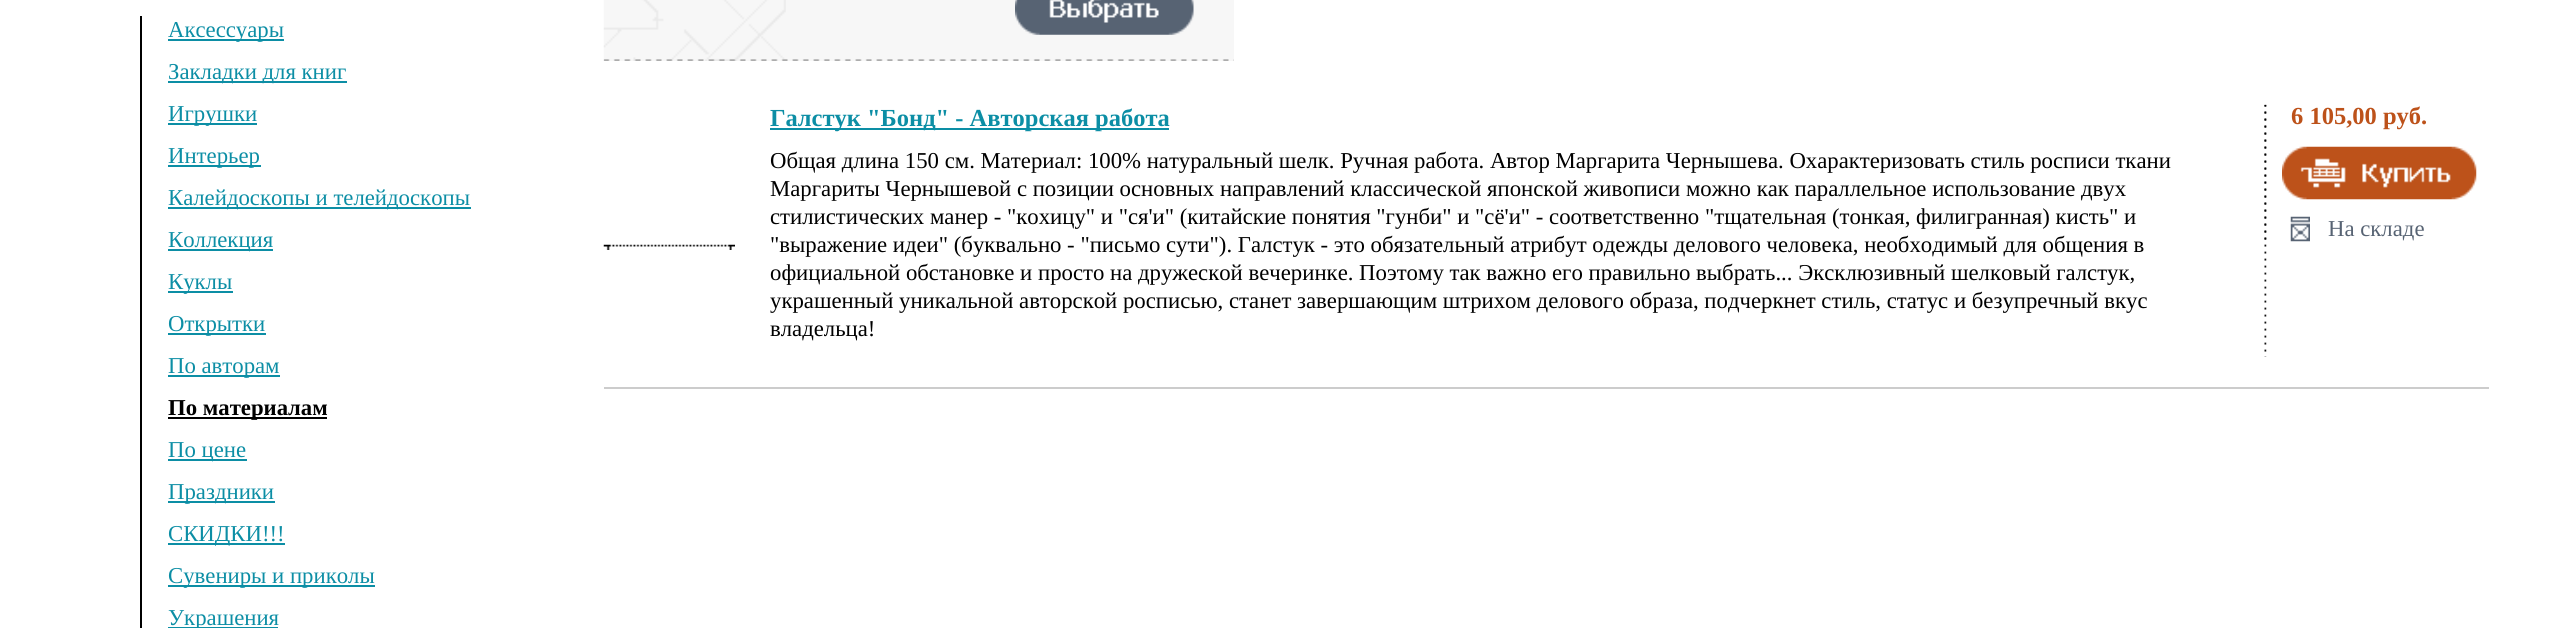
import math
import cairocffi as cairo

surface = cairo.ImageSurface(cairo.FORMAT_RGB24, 2574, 628)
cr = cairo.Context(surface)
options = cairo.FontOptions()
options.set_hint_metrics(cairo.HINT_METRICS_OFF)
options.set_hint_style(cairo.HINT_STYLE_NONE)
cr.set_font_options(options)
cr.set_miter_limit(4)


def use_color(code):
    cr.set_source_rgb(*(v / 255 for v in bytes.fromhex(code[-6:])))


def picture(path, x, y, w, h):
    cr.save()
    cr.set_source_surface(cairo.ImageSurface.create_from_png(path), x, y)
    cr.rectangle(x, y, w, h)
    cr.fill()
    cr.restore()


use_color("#ffffff")
cr.paint()
use_color("#000000")
cr.rectangle(140, 16, 2, 612)
cr.fill()
use_color("#0c8ea5")
cr.rectangle(168, 39, 116, 2)
cr.fill()
cr.select_font_face("Liberation Serif")
cr.set_font_size(22.75)
cr.move_to(168, 37)
cr.show_text("Аксессуары")
cr.rectangle(168, 81, 179, 2)
cr.fill()
cr.move_to(168, 79)
cr.show_text("Закладки для книг")
cr.rectangle(168, 123, 89, 2)
cr.fill()
cr.move_to(168, 121)
cr.show_text("Игрушки")
cr.rectangle(168, 165, 93, 2)
cr.fill()
cr.move_to(168, 163)
cr.show_text("Интерьер")
cr.rectangle(168, 207, 303, 2)
cr.fill()
cr.move_to(168, 205)
cr.show_text("Калейдоскопы и телейдоскопы")
cr.rectangle(168, 249, 105, 2)
cr.fill()
cr.move_to(168, 247)
cr.show_text("Коллекция")
cr.rectangle(168, 291, 65, 2)
cr.fill()
cr.move_to(168, 289)
cr.show_text("Куклы")
cr.rectangle(168, 333, 98, 2)
cr.fill()
cr.move_to(168, 331)
cr.show_text("Открытки")
cr.rectangle(168, 375, 112, 2)
cr.fill()
cr.move_to(168, 373)
cr.show_text("По авторам")
use_color("#000000")
cr.rectangle(168, 417, 159, 2)
cr.fill()
cr.select_font_face("Liberation Serif", cairo.FONT_SLANT_NORMAL, cairo.FONT_WEIGHT_BOLD)
cr.move_to(168, 415)
cr.show_text("По материалам")
use_color("#0c8ea5")
cr.rectangle(168, 459, 79, 2)
cr.fill()
cr.select_font_face("Liberation Serif")
cr.move_to(168, 457)
cr.show_text("По цене")
cr.rectangle(168, 501, 107, 2)
cr.fill()
cr.move_to(168, 499)
cr.show_text("Праздники")
cr.rectangle(168, 543, 117, 2)
cr.fill()
cr.move_to(168, 541)
cr.show_text("СКИДКИ!!!")
cr.rectangle(168, 585, 207, 2)
cr.fill()
cr.move_to(168, 583)
cr.show_text("Сувениры и приколы")
cr.rectangle(168, 627, 110, 1)
cr.fill()
cr.move_to(168, 625)
cr.show_text("Украшения")
use_color("#f7f7f7")
cr.rectangle(786, 0, 448, 61)
cr.fill()
picture("img1.png", 603, 0, 183, 61)
picture("img2.png", 603, 59, 631, 2)
picture("img3.png", 1015, 0, 179, 35)
use_color("#cccccc")
cr.rectangle(604, 387, 1885, 2)
cr.fill()
picture("img4.png", 603, 244, 132, 6)
picture("img5.png", 2264, 104, 3, 253)
use_color("#0c8ea5")
cr.rectangle(770, 128, 399, 2)
cr.fill()
cr.select_font_face("Liberation Serif", cairo.FONT_SLANT_NORMAL, cairo.FONT_WEIGHT_BOLD)
cr.set_font_size(24.5)
cr.move_to(770, 126)
cr.show_text("Галстук \"Бонд\" - Авторская работа")
cr.select_font_face("Liberation Serif")
cr.set_font_size(22.75)
use_color("#000000")
cr.move_to(770, 168)
cr.show_text("Общая длина 150 см. Материал: 100% натуральный шелк. Ручная работа. Автор Маргарита Чернышева. Охарактеризовать стиль росписи ткани")
cr.move_to(770, 196)
cr.show_text("Маргариты Чернышевой с позиции основных направлений классической японской живописи можно как параллельное использование двух")
cr.move_to(770, 224)
cr.show_text("стилистических манер - \"кохицу\" и \"ся'и\" (китайские понятия \"гунби\" и \"сё'и\" - соответственно \"тщательная (тонкая, филигранная) кисть\" и")
cr.move_to(770, 252)
cr.show_text("\"выражение идеи\" (буквально - \"письмо сути\"). Галстук - это обязательный атрибут одежды делового человека, необходимый для общения в")
cr.move_to(770, 280)
cr.show_text("официальной обстановке и просто на дружеской вечеринке. Поэтому так важно его правильно выбрать... Эксклюзивный шелковый галстук,")
cr.move_to(770, 308)
cr.show_text("украшенный уникальной авторской росписью, станет завершающим штрихом делового образа, подчеркнет стиль, статус и безупречный вкус")
cr.move_to(770, 336)
cr.show_text("владельца!")
picture("img6.png", 2264, 104, 3, 136)
cr.select_font_face("Liberation Serif", cairo.FONT_SLANT_NORMAL, cairo.FONT_WEIGHT_BOLD)
cr.set_font_size(24.5)
use_color("#bd521a")
cr.move_to(2291, 124)
cr.show_text("6 105,00 руб.")
picture("img7.png", 2282, 146, 195, 54)
picture("img8.png", 2290, 216, 20, 26)
cr.select_font_face("Liberation Serif")
cr.set_font_size(22.75)
use_color("#576373")
cr.move_to(2328, 236)
cr.show_text("На складе")
surface.write_to_png("result.png")
